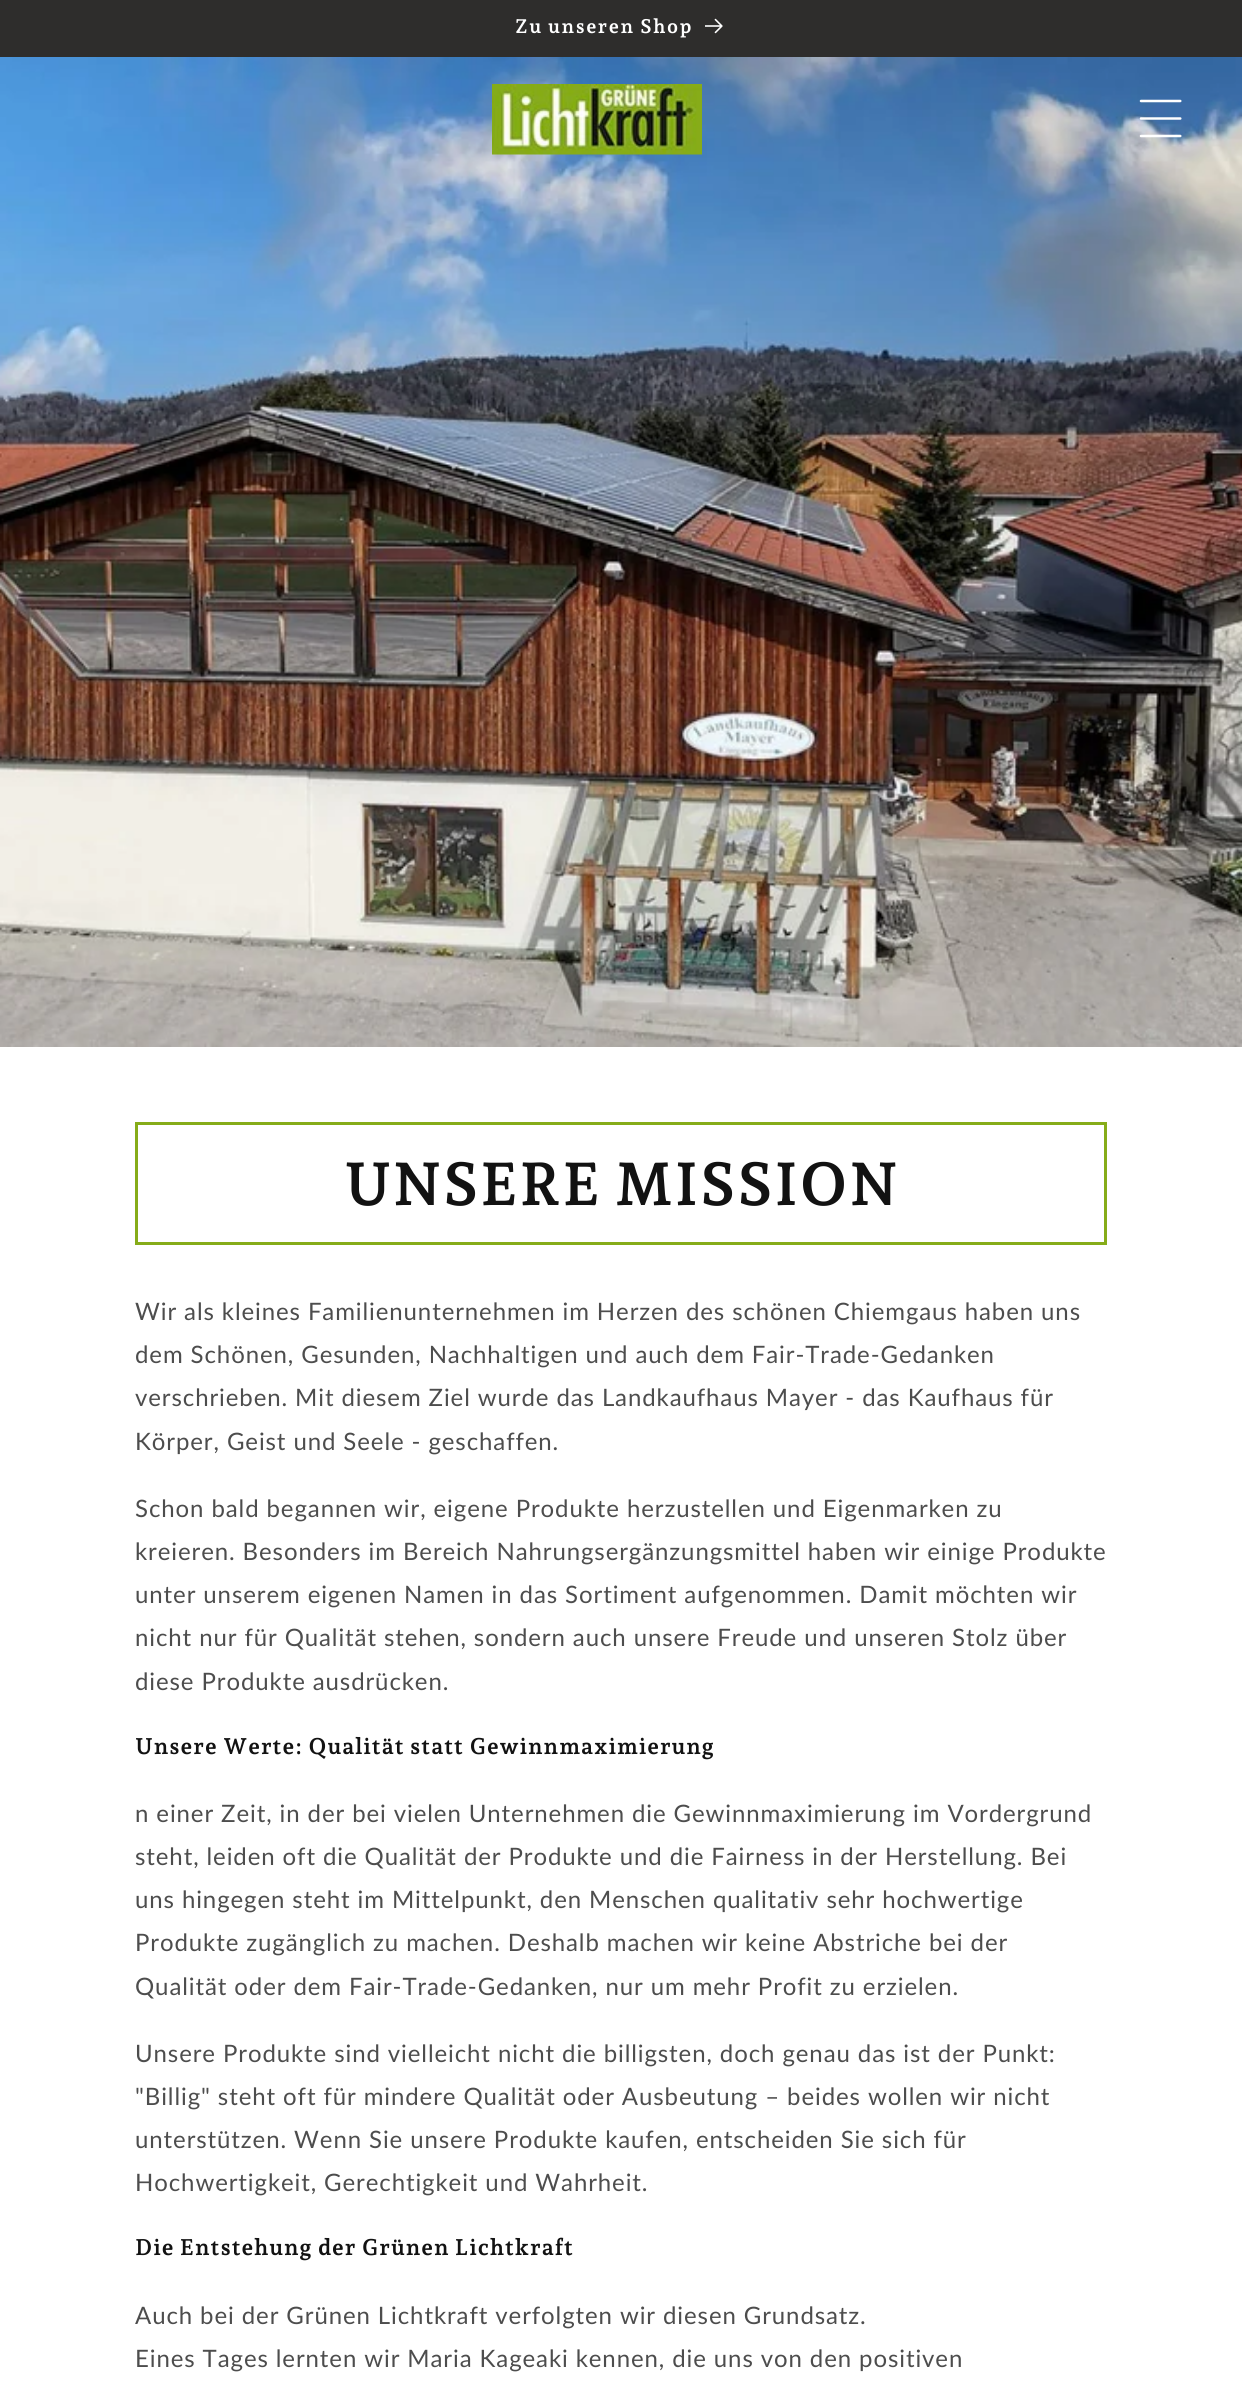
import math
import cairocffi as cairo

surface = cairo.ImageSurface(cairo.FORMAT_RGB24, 1242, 2389)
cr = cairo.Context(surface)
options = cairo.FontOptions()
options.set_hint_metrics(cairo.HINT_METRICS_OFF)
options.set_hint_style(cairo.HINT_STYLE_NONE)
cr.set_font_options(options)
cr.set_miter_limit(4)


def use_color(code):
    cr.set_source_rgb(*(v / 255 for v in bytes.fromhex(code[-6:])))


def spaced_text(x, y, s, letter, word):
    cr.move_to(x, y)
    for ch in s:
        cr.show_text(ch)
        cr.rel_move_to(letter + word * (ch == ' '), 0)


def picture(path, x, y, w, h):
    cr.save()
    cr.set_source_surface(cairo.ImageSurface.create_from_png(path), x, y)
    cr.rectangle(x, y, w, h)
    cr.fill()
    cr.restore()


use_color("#ffffff")
cr.paint()
use_color("#2e2d2c")
cr.rectangle(0, 0, 1242, 57)
cr.fill()
cr.select_font_face("Andada Pro", cairo.FONT_SLANT_NORMAL, cairo.FONT_WEIGHT_BOLD)
cr.set_font_size(19.5)
use_color("#ffffff")
spaced_text(515, 33, "Zu unseren Shop", 1.5, 0)
picture("img1.png", 705, 18, 18, 16)
picture("img4.png", 0, 57, 1242, 990)
picture("img2.png", 492, 84, 210, 71)
picture("img3.png", 1139, 99, 43, 39)
cr.rectangle(136.5, 1123.5, 969, 120)
use_color("#86ac19")
cr.set_line_width(3)
cr.stroke()
cr.set_font_size(60)
use_color("#121212")
spaced_text(344, 1205, "UNSERE MISSION", 0.9, 0)
cr.select_font_face("Lato")
cr.set_font_size(24)
use_color("#4d4d4d")
spaced_text(135, 1320, "Wir als kleines Familienunternehmen im Herzen des schönen Chiemgaus haben uns", 0.9, 0)
spaced_text(135, 1363, "dem Schönen, Gesunden, Nachhaltigen und auch dem Fair-Trade-Gedanken", 0.9, 0)
spaced_text(135, 1406, "verschrieben. Mit diesem Ziel wurde das Landkaufhaus Mayer - das Kaufhaus für", 0.9, 0)
spaced_text(135, 1450, "Körper, Geist und Seele - geschaffen.", 0.9, 0)
spaced_text(135, 1517, "Schon bald begannen wir, eigene Produkte herzustellen und Eigenmarken zu", 0.9, 0)
spaced_text(135, 1560, "kreieren. Besonders im Bereich Nahrungsergänzungsmittel haben wir einige Produkte", 0.9, 0)
spaced_text(135, 1603, "unter unserem eigenen Namen in das Sortiment aufgenommen. Damit möchten wir", 0.9, 0)
spaced_text(135, 1646, "nicht nur für Qualität stehen, sondern auch unsere Freude und unseren Stolz über", 0.9, 0)
spaced_text(135, 1690, "diese Produkte ausdrücken.", 0.9, 0)
cr.select_font_face("Andada Pro", cairo.FONT_SLANT_NORMAL, cairo.FONT_WEIGHT_BOLD)
cr.set_font_size(22.5)
use_color("#121212")
spaced_text(135, 1754, "Unsere Werte: Qualität statt Gewinnmaximierung", 0.9, 0)
cr.select_font_face("Lato")
cr.set_font_size(24)
use_color("#4d4d4d")
spaced_text(135, 1822, "n einer Zeit, in der bei vielen Unternehmen die Gewinnmaximierung im Vordergrund", 0.9, 0)
spaced_text(135, 1865, "steht, leiden oft die Qualität der Produkte und die Fairness in der Herstellung. Bei", 0.9, 0)
spaced_text(135, 1908, "uns hingegen steht im Mittelpunkt, den Menschen qualitativ sehr hochwertige", 0.9, 0)
spaced_text(135, 1951, "Produkte zugänglich zu machen. Deshalb machen wir keine Abstriche bei der", 0.9, 0)
spaced_text(135, 1995, "Qualität oder dem Fair-Trade-Gedanken, nur um mehr Profit zu erzielen.", 0.9, 0)
spaced_text(135, 2062, "Unsere Produkte sind vielleicht nicht die billigsten, doch genau das ist der Punkt:", 0.9, 0)
spaced_text(135, 2105, "\"Billig\" steht oft für mindere Qualität oder Ausbeutung – beides wollen wir nicht", 0.9, 0)
spaced_text(135, 2148, "unterstützen. Wenn Sie unsere Produkte kaufen, entscheiden Sie sich für", 0.9, 0)
spaced_text(135, 2191, "Hochwertigkeit, Gerechtigkeit und Wahrheit.", 0.9, 0)
cr.select_font_face("Andada Pro", cairo.FONT_SLANT_NORMAL, cairo.FONT_WEIGHT_BOLD)
cr.set_font_size(22.5)
use_color("#121212")
spaced_text(135, 2255, "Die Entstehung der Grünen Lichtkraft", 0.9, 0)
cr.select_font_face("Lato")
cr.set_font_size(24)
use_color("#4d4d4d")
spaced_text(135, 2324, "Auch bei der Grünen Lichtkraft verfolgten wir diesen Grundsatz.", 0.9, 0)
spaced_text(135, 2367, "Eines Tages lernten wir Maria Kageaki kennen, die uns von den positiven", 0.9, 0)
surface.write_to_png("result.png")
